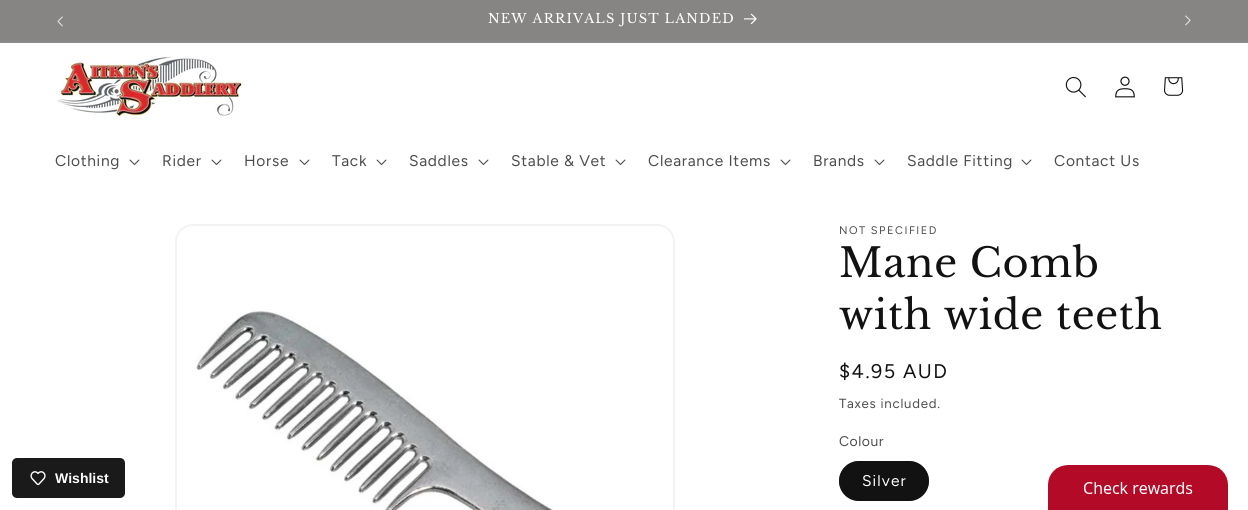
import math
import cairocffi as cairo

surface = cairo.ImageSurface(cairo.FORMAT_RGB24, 1248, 510)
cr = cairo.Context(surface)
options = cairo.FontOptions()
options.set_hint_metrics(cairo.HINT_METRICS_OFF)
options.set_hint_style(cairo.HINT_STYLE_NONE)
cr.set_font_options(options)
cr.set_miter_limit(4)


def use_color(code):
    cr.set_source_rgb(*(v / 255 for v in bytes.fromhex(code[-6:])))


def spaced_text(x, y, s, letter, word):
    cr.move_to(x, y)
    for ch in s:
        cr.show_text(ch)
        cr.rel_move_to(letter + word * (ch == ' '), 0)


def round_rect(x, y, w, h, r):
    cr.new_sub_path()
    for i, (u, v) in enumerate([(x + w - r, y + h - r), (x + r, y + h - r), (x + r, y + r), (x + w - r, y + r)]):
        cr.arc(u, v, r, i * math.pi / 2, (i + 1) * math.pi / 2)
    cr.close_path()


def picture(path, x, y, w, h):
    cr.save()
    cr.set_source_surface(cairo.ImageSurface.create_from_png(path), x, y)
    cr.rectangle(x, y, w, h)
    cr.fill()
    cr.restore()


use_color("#ffffff")
cr.paint()
use_color("#868584")
cr.rectangle(0, 0, 1248, 42)
cr.fill()
use_color("#908f8e")
cr.rectangle(0, 42, 1248, 1)
cr.fill()
picture("img1.png", 57, 16, 6, 11)
cr.select_font_face("Libre Baskerville")
cr.set_font_size(13)
use_color("#ffffff")
spaced_text(488, 23, "NEW ARRIVALS JUST LANDED", 1.1, 0)
picture("img2.png", 744, 13, 13, 11)
picture("img3.png", 1185, 15, 6, 11)
picture("img4.png", 57, 55, 186, 63)
picture("img5.png", 1065, 76, 21, 22)
picture("img6.png", 1115, 76, 20, 22)
picture("img7.png", 1164, 77, 20, 19)
cr.select_font_face("Figtree")
cr.set_font_size(15.5)
use_color("#4d4d4d")
spaced_text(55, 166, "Clothing", 0.7, 0)
picture("img8.png", 129, 159, 11, 6)
spaced_text(162, 166, "Rider", 0.7, 0)
picture("img8.png", 211, 159, 11, 6)
spaced_text(244, 166, "Horse", 0.7, 0)
picture("img8.png", 299, 159, 11, 6)
spaced_text(332, 166, "Tack", 0.7, 0)
picture("img8.png", 376, 159, 11, 6)
spaced_text(409, 166, "Saddles", 0.7, 0)
picture("img8.png", 478, 159, 11, 6)
spaced_text(511, 166, "Stable & Vet", 0.7, 0)
picture("img8.png", 615, 159, 11, 6)
spaced_text(648, 166, "Clearance Items", 0.7, 0)
picture("img8.png", 780, 159, 11, 6)
spaced_text(813, 166, "Brands", 0.7, 0)
picture("img8.png", 874, 159, 11, 6)
spaced_text(907, 166, "Saddle Fitting", 0.7, 0)
picture("img8.png", 1021, 159, 11, 6)
spaced_text(1054, 166, "Contact Us", 0.7, 0)
round_rect(176, 225, 498, 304, 17)
use_color("#f3f3f3")
cr.stroke()
picture("img9.png", 196, 309, 357, 201)
cr.set_font_size(11)
use_color("#4d4d4d")
spaced_text(839, 234, "NOT SPECIFIED", 1.5, 0)
cr.select_font_face("Libre Baskerville")
cr.set_font_size(40)
use_color("#121212")
spaced_text(839, 277, "Mane Comb", 0.6, 0)
spaced_text(839, 329, "with wide teeth", 0.6, 0)
cr.select_font_face("Figtree")
cr.set_font_size(19.75)
spaced_text(839, 378, "$4.95 AUD", 1.5, 0)
cr.set_font_size(13.25)
use_color("#4d4d4d")
spaced_text(839, 408, "Taxes included.", 0.75, 0)
cr.set_font_size(14)
spaced_text(839, 446, "Colour", 0.5, 0)
use_color("#121212")
round_rect(839, 461, 90, 40, 20)
cr.fill()
round_rect(839.5, 461.5, 89, 39, 19.5)
cr.set_source_rgba(0.071, 0.071, 0.071, 0.55)
cr.set_line_width(1)
cr.stroke()
cr.set_font_size(15.5)
use_color("#ffffff")
spaced_text(862, 486, "Silver", 1.1, 0)
use_color("#1a1a1a")
round_rect(12, 458, 113, 40, 5)
cr.fill()
picture("img10.png", 30, 471, 16, 15)
cr.select_font_face("Liberation Sans", cairo.FONT_SLANT_NORMAL, cairo.FONT_WEIGHT_BOLD)
cr.set_font_size(14)
use_color("#ffffff")
cr.move_to(55, 483)
cr.show_text("Wishlist")
picture("img11.png", 1048, 465, 180, 45)
surface.write_to_png("result.png")
